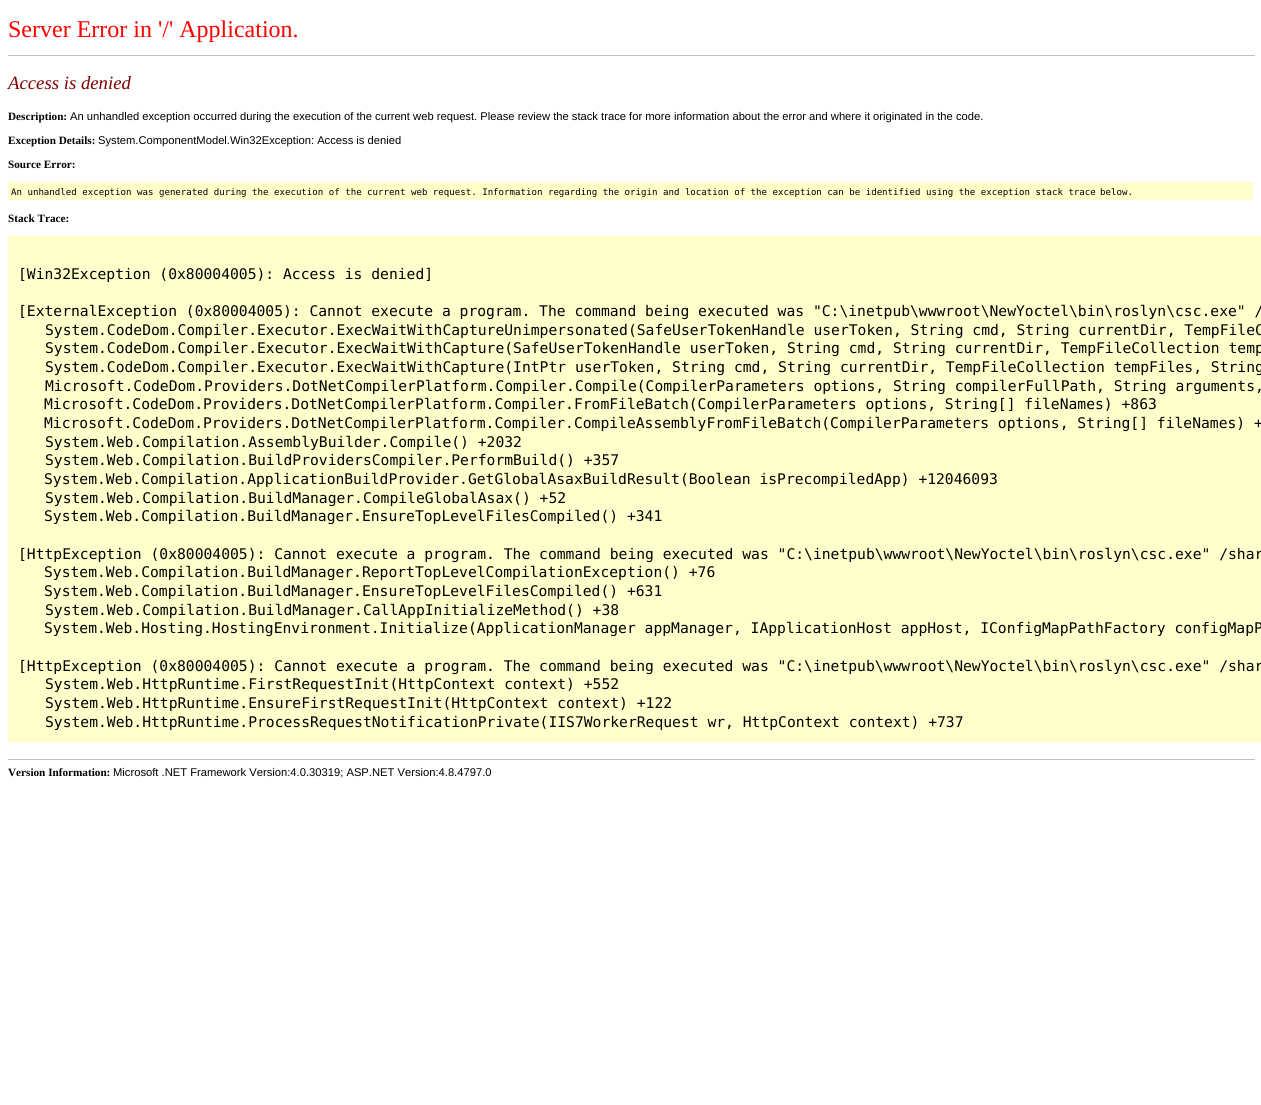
import math
import cairocffi as cairo

surface = cairo.ImageSurface(cairo.FORMAT_RGB24, 1261, 1105)
cr = cairo.Context(surface)
options = cairo.FontOptions()
options.set_hint_metrics(cairo.HINT_METRICS_OFF)
options.set_hint_style(cairo.HINT_STYLE_NONE)
cr.set_font_options(options)
cr.set_miter_limit(4)


def use_color(code):
    cr.set_source_rgb(*(v / 255 for v in bytes.fromhex(code[-6:])))


use_color("#ffffff")
cr.paint()
cr.select_font_face("Liberation Serif")
cr.set_font_size(24)
use_color("#ff0000")
cr.move_to(8, 37)
cr.show_text("Server Error in '/' Application.")
use_color("#c0c0c0")
cr.rectangle(8, 55, 1247, 1)
cr.fill()
cr.select_font_face("Liberation Serif", cairo.FONT_SLANT_ITALIC)
cr.set_font_size(18.75)
use_color("#800000")
cr.move_to(8, 89)
cr.show_text("Access is denied")
cr.select_font_face("Liberation Serif", cairo.FONT_SLANT_NORMAL, cairo.FONT_WEIGHT_BOLD)
cr.set_font_size(11.2)
use_color("#000000")
cr.move_to(8, 120)
cr.show_text("Description:")
cr.select_font_face("Liberation Sans")
cr.move_to(70, 120)
cr.show_text("An unhandled exception occurred during the execution of the current web request. Please review the stack trace for more information about the error and where it originated in the code.")
cr.select_font_face("Liberation Serif", cairo.FONT_SLANT_NORMAL, cairo.FONT_WEIGHT_BOLD)
cr.move_to(8, 144)
cr.show_text("Exception Details:")
cr.select_font_face("Liberation Sans")
cr.move_to(98, 144)
cr.show_text("System.ComponentModel.Win32Exception: Access is denied")
cr.select_font_face("Liberation Serif", cairo.FONT_SLANT_NORMAL, cairo.FONT_WEIGHT_BOLD)
cr.move_to(8, 168)
cr.show_text("Source Error:")
use_color("#ffffcc")
cr.rectangle(8, 182, 1245, 18)
cr.fill()
cr.select_font_face("DejaVu Sans Mono")
cr.set_font_size(9.1)
use_color("#000000")
cr.move_to(11, 195)
cr.show_text("An unhandled exception was generated during the execution of the current web request. Information regarding the origin and location of the exception can be identified using the exception stack trace")
cr.move_to(1100, 195)
cr.show_text("below.")
cr.select_font_face("Liberation Serif", cairo.FONT_SLANT_NORMAL, cairo.FONT_WEIGHT_BOLD)
cr.set_font_size(11.2)
cr.move_to(8, 222)
cr.show_text("Stack Trace:")
use_color("#ffffcc")
cr.rectangle(8, 236, 1253, 506)
cr.fill()
cr.select_font_face("DejaVu Sans Mono")
cr.set_font_size(14.67)
use_color("#000000")
cr.move_to(18, 279)
cr.show_text("[Win32Exception (0x80004005): Access is denied]")
cr.move_to(18, 316)
cr.show_text("[ExternalException (0x80004005): Cannot execute a program. The command being executed was \"C:\\inetpub\\wwwroot\\NewYoctel\\bin\\roslyn\\csc.exe\" /")
cr.move_to(45, 335)
cr.show_text("System.CodeDom.Compiler.Executor.ExecWaitWithCaptureUnimpersonated(SafeUserTokenHandle userToken, String cmd, String currentDir, TempFileC")
cr.move_to(45, 353)
cr.show_text("System.CodeDom.Compiler.Executor.ExecWaitWithCapture(SafeUserTokenHandle userToken, String cmd, String currentDir, TempFileCollection temp")
cr.move_to(45, 372)
cr.show_text("System.CodeDom.Compiler.Executor.ExecWaitWithCapture(IntPtr userToken, String cmd, String currentDir, TempFileCollection tempFiles, String")
cr.move_to(45, 391)
cr.show_text("Microsoft.CodeDom.Providers.DotNetCompilerPlatform.Compiler.Compile(CompilerParameters options, String compilerFullPath, String arguments,")
cr.move_to(44, 409)
cr.show_text("Microsoft.CodeDom.Providers.DotNetCompilerPlatform.Compiler.FromFileBatch(CompilerParameters options, String[] fileNames) +863")
cr.move_to(44, 428)
cr.show_text("Microsoft.CodeDom.Providers.DotNetCompilerPlatform.Compiler.CompileAssemblyFromFileBatch(CompilerParameters options, String[] fileNames) +")
cr.move_to(45, 447)
cr.show_text("System.Web.Compilation.AssemblyBuilder.Compile() +2032")
cr.move_to(45, 465)
cr.show_text("System.Web.Compilation.BuildProvidersCompiler.PerformBuild() +357")
cr.move_to(44, 484)
cr.show_text("System.Web.Compilation.ApplicationBuildProvider.GetGlobalAsaxBuildResult(Boolean isPrecompiledApp) +12046093")
cr.move_to(45, 503)
cr.show_text("System.Web.Compilation.BuildManager.CompileGlobalAsax() +52")
cr.move_to(44, 521)
cr.show_text("System.Web.Compilation.BuildManager.EnsureTopLevelFilesCompiled() +341")
cr.move_to(18, 559)
cr.show_text("[HttpException (0x80004005): Cannot execute a program. The command being executed was \"C:\\inetpub\\wwwroot\\NewYoctel\\bin\\roslyn\\csc.exe\" /shar")
cr.move_to(44, 577)
cr.show_text("System.Web.Compilation.BuildManager.ReportTopLevelCompilationException() +76")
cr.move_to(44, 596)
cr.show_text("System.Web.Compilation.BuildManager.EnsureTopLevelFilesCompiled() +631")
cr.move_to(45, 615)
cr.show_text("System.Web.Compilation.BuildManager.CallAppInitializeMethod() +38")
cr.move_to(44, 633)
cr.show_text("System.Web.Hosting.HostingEnvironment.Initialize(ApplicationManager appManager, IApplicationHost appHost, IConfigMapPathFactory configMapP")
cr.move_to(18, 671)
cr.show_text("[HttpException (0x80004005): Cannot execute a program. The command being executed was \"C:\\inetpub\\wwwroot\\NewYoctel\\bin\\roslyn\\csc.exe\" /shar")
cr.move_to(45, 689)
cr.show_text("System.Web.HttpRuntime.FirstRequestInit(HttpContext context) +552")
cr.move_to(45, 708)
cr.show_text("System.Web.HttpRuntime.EnsureFirstRequestInit(HttpContext context) +122")
cr.move_to(45, 727)
cr.show_text("System.Web.HttpRuntime.ProcessRequestNotificationPrivate(IIS7WorkerRequest wr, HttpContext context) +737")
use_color("#c0c0c0")
cr.rectangle(8, 759, 1247, 1)
cr.fill()
cr.select_font_face("Liberation Serif", cairo.FONT_SLANT_NORMAL, cairo.FONT_WEIGHT_BOLD)
cr.set_font_size(11.2)
use_color("#000000")
cr.move_to(8, 776)
cr.show_text("Version Information:")
cr.select_font_face("Liberation Sans")
cr.move_to(113, 776)
cr.show_text("Microsoft .NET Framework Version:4.0.30319; ASP.NET Version:4.8.4797.0")
surface.write_to_png("result.png")
